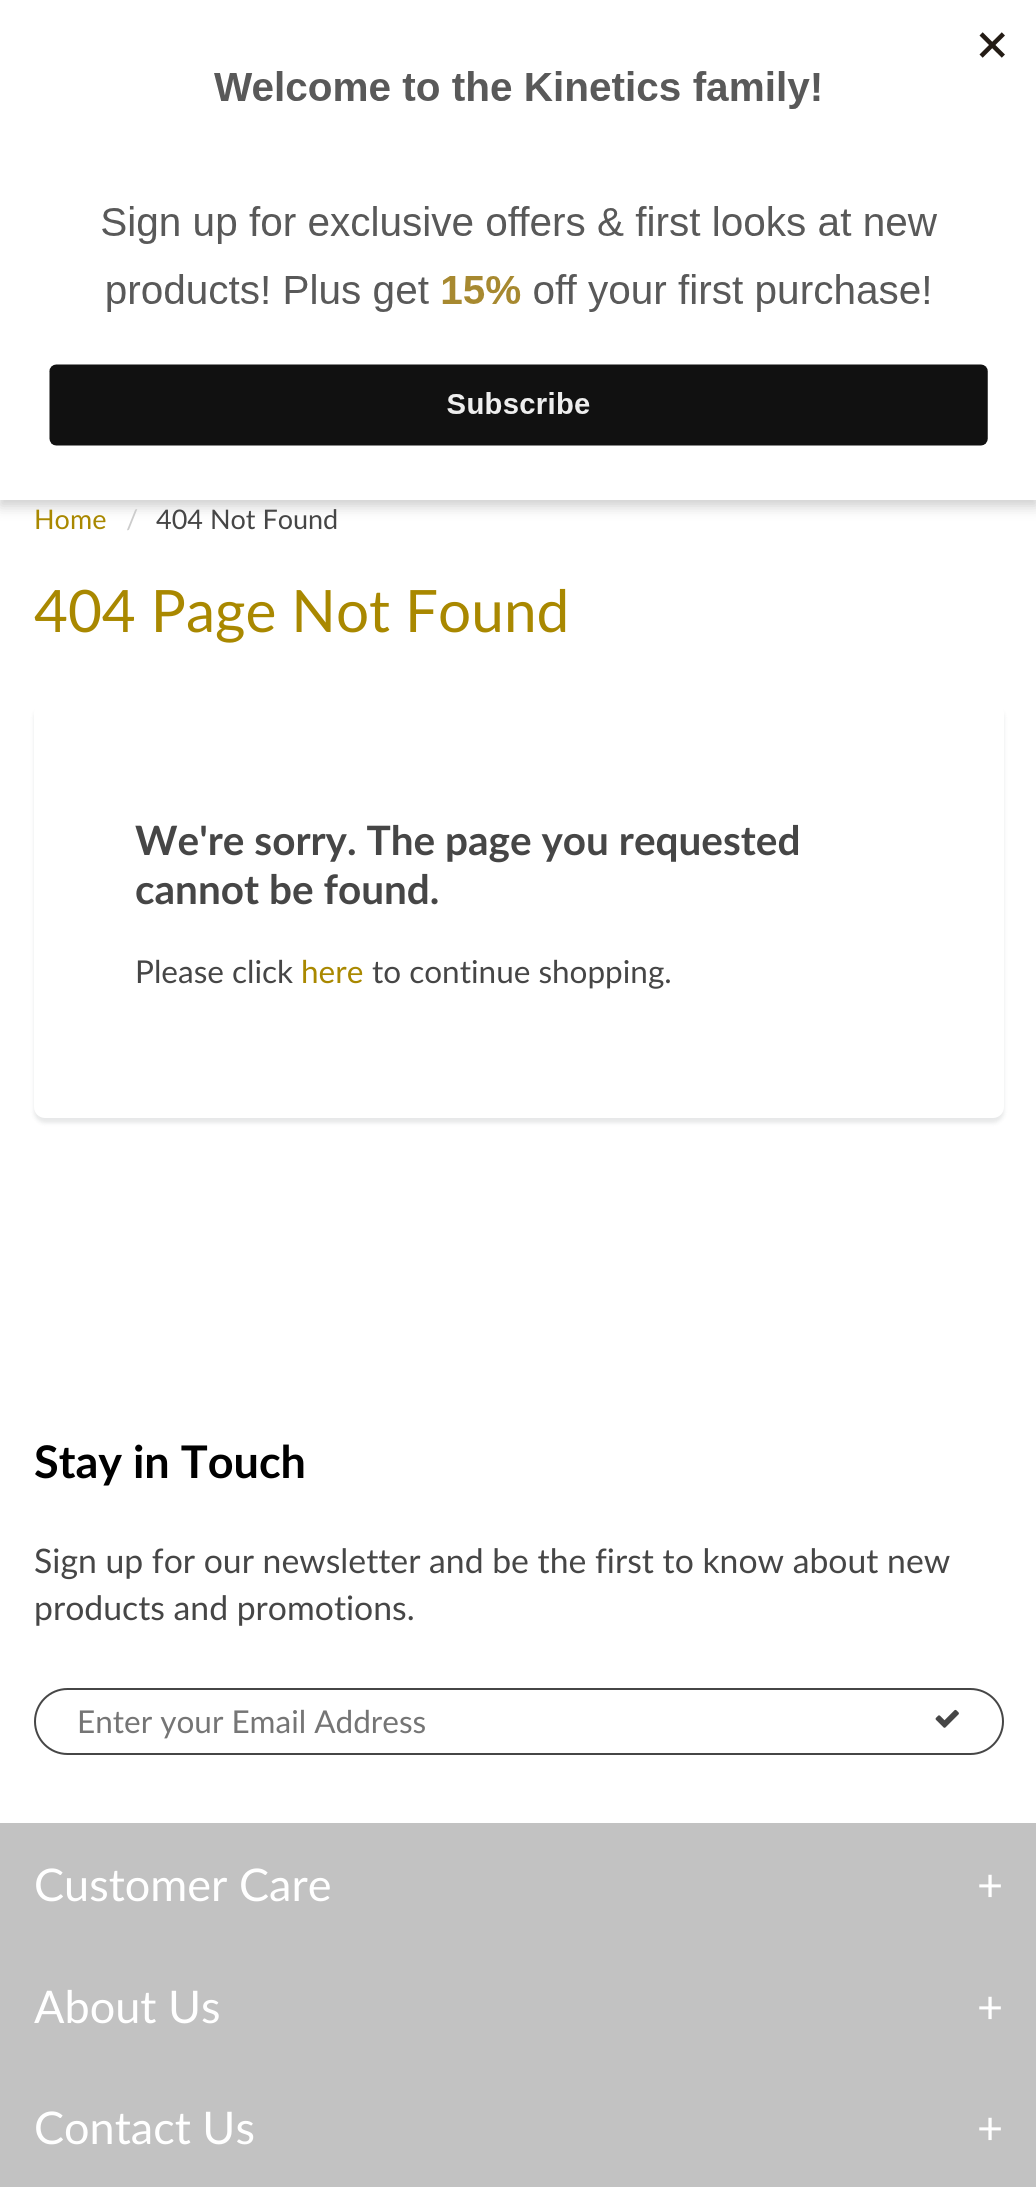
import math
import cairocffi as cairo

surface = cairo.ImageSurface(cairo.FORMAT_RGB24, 1036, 2191)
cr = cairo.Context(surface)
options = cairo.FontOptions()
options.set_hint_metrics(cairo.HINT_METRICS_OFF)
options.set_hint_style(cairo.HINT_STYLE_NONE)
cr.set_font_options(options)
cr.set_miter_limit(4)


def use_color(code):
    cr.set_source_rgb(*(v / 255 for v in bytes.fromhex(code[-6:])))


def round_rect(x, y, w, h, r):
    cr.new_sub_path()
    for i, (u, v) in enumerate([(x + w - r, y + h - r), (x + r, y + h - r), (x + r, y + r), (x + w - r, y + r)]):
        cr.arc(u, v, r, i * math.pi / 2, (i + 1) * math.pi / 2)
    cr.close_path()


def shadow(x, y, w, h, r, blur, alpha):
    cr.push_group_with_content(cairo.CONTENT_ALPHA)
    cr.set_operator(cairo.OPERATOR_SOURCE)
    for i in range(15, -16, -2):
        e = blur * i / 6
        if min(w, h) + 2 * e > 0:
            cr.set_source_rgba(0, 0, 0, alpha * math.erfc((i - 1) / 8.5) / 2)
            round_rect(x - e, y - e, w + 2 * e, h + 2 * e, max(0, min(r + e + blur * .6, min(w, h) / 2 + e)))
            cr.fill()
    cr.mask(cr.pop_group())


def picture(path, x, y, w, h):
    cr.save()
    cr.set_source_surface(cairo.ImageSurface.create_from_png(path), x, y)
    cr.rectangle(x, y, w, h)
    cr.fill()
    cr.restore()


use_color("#ffffff")
cr.paint()
use_color("#000000")
shadow(0, 7, 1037, 499, 0, 7, 0.2)
use_color("#ffffff")
cr.rectangle(0, 0, 1036, 500)
cr.fill()
picture("img1.png", 49, 32, 956, 414)
cr.select_font_face("Lato")
cr.set_font_size(27)
use_color("#a98800")
cr.move_to(34, 529)
cr.show_text("Home")
use_color("#cccccc")
cr.move_to(126, 529)
cr.show_text("/")
use_color("#464646")
cr.move_to(156, 529)
cr.show_text("404 Not Found")
cr.set_font_size(58.5)
use_color("#a98800")
cr.move_to(34, 632)
cr.show_text("404 Page Not Found")
use_color("#0b191c")
shadow(34, 707, 970, 416, 11, 2, 0.1)
use_color("#ffffff")
round_rect(34, 702, 970, 416, 11)
cr.fill()
cr.select_font_face("Lato", cairo.FONT_SLANT_NORMAL, cairo.FONT_WEIGHT_BOLD)
cr.set_font_size(40.5)
use_color("#464646")
cr.move_to(135, 855)
cr.show_text("We're sorry. The page you requested")
cr.move_to(135, 904)
cr.show_text("cannot be found.")
cr.select_font_face("Lato")
cr.set_font_size(31.5)
cr.move_to(135, 983)
cr.show_text("Please click")
use_color("#a98800")
cr.move_to(301, 983)
cr.show_text("here")
use_color("#464646")
cr.move_to(372, 983)
cr.show_text("to continue shopping.")
cr.select_font_face("Lato", cairo.FONT_SLANT_NORMAL, cairo.FONT_WEIGHT_BOLD)
cr.set_font_size(45)
use_color("#000000")
cr.move_to(34, 1478)
cr.show_text("Stay in Touch")
cr.select_font_face("Lato")
cr.set_font_size(33.75)
use_color("#464646")
cr.move_to(34, 1573)
cr.show_text("Sign up for our newsletter and be the first to know about new")
cr.move_to(34, 1620)
cr.show_text("products and promotions.")
round_rect(35, 1689, 968, 65, 32.5)
cr.stroke()
cr.set_font_size(31.5)
use_color("#757575")
cr.move_to(77, 1733)
cr.show_text("Enter your Email Address")
picture("img2.png", 935, 1709, 24, 19)
use_color("#c2c2c2")
cr.rectangle(0, 1823, 1036, 364)
cr.fill()
cr.set_font_size(45)
use_color("#ffffff")
cr.move_to(34, 1901)
cr.show_text("Customer Care")
cr.move_to(977, 1901)
cr.show_text("+")
cr.move_to(34, 2023)
cr.show_text("About Us")
cr.move_to(977, 2023)
cr.show_text("+")
cr.move_to(34, 2144)
cr.show_text("Contact Us")
cr.move_to(977, 2144)
cr.show_text("+")
surface.write_to_png("result.png")
